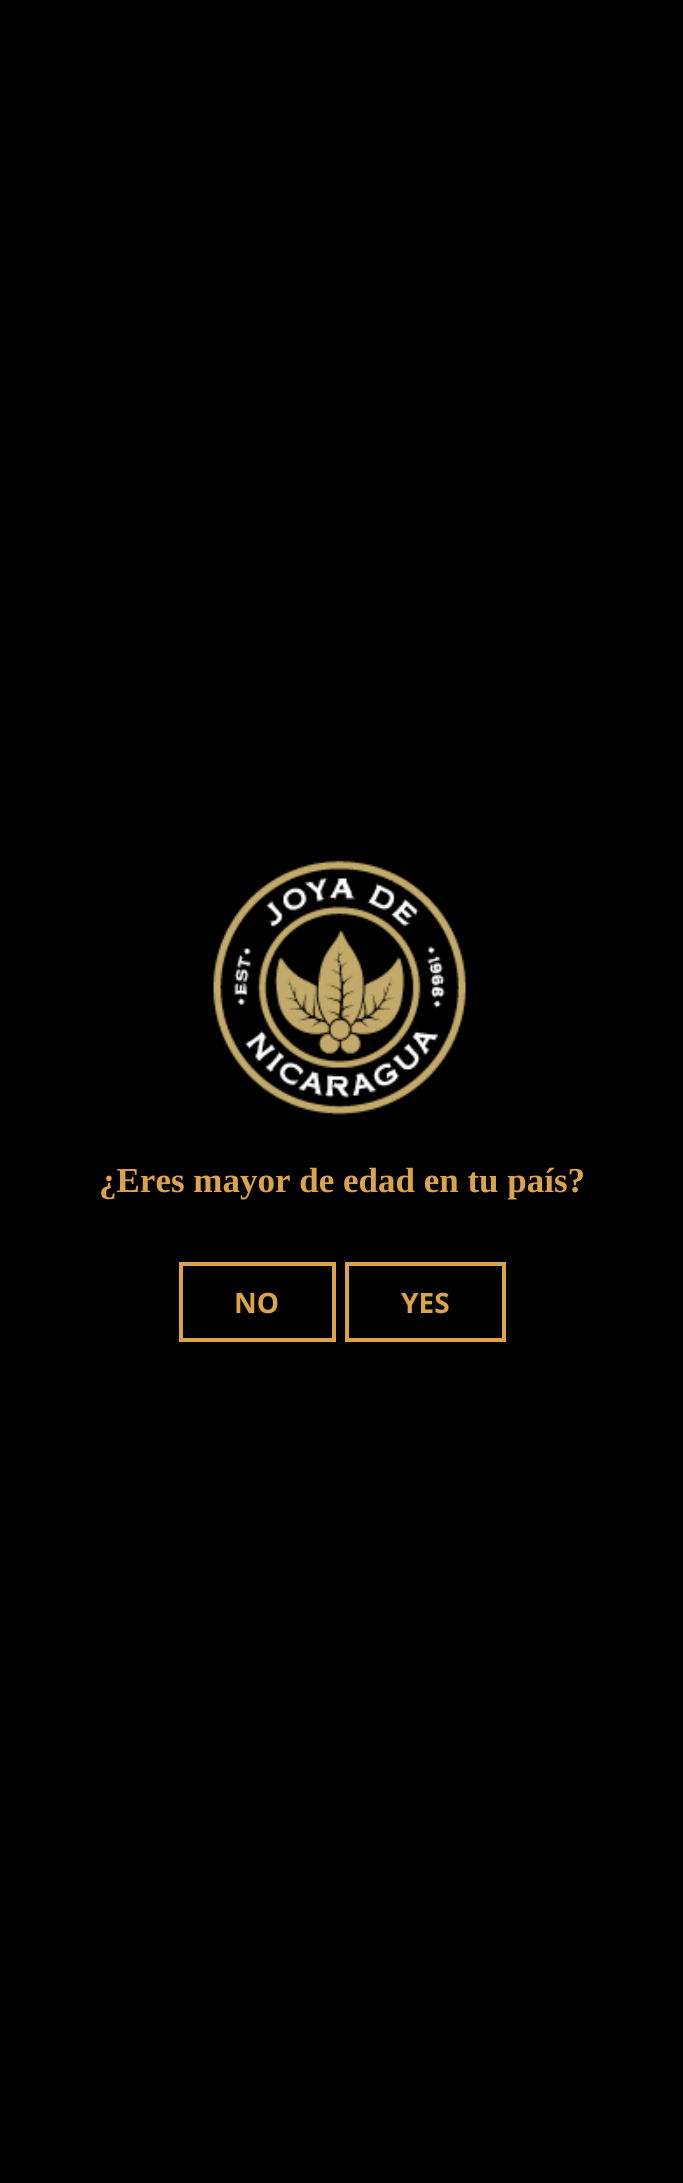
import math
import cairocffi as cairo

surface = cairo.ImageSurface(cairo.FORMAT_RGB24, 683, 2183)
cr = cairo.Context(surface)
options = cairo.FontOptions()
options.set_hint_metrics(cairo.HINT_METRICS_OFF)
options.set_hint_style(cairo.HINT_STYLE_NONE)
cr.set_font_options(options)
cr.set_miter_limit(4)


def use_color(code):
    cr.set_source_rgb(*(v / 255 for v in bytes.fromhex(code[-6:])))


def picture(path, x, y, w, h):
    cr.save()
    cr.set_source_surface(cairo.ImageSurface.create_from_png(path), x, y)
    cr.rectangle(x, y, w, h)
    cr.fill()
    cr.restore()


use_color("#000000")
cr.paint()
picture("img1.png", 213, 860, 253, 256)
cr.select_font_face("Liberation Serif", cairo.FONT_SLANT_NORMAL, cairo.FONT_WEIGHT_BOLD)
cr.set_font_size(35)
use_color("#dca447")
cr.move_to(99, 1192)
cr.show_text("¿Eres mayor de edad en tu país?")
cr.rectangle(181, 1264, 153, 76)
cr.set_line_width(4)
cr.stroke()
cr.select_font_face("Open Sans", cairo.FONT_SLANT_NORMAL, cairo.FONT_WEIGHT_BOLD)
cr.set_font_size(28)
cr.move_to(234, 1313)
cr.show_text("NO")
cr.rectangle(347, 1264, 157, 76)
cr.stroke()
cr.move_to(401, 1313)
cr.show_text("YES")
surface.write_to_png("result.png")
